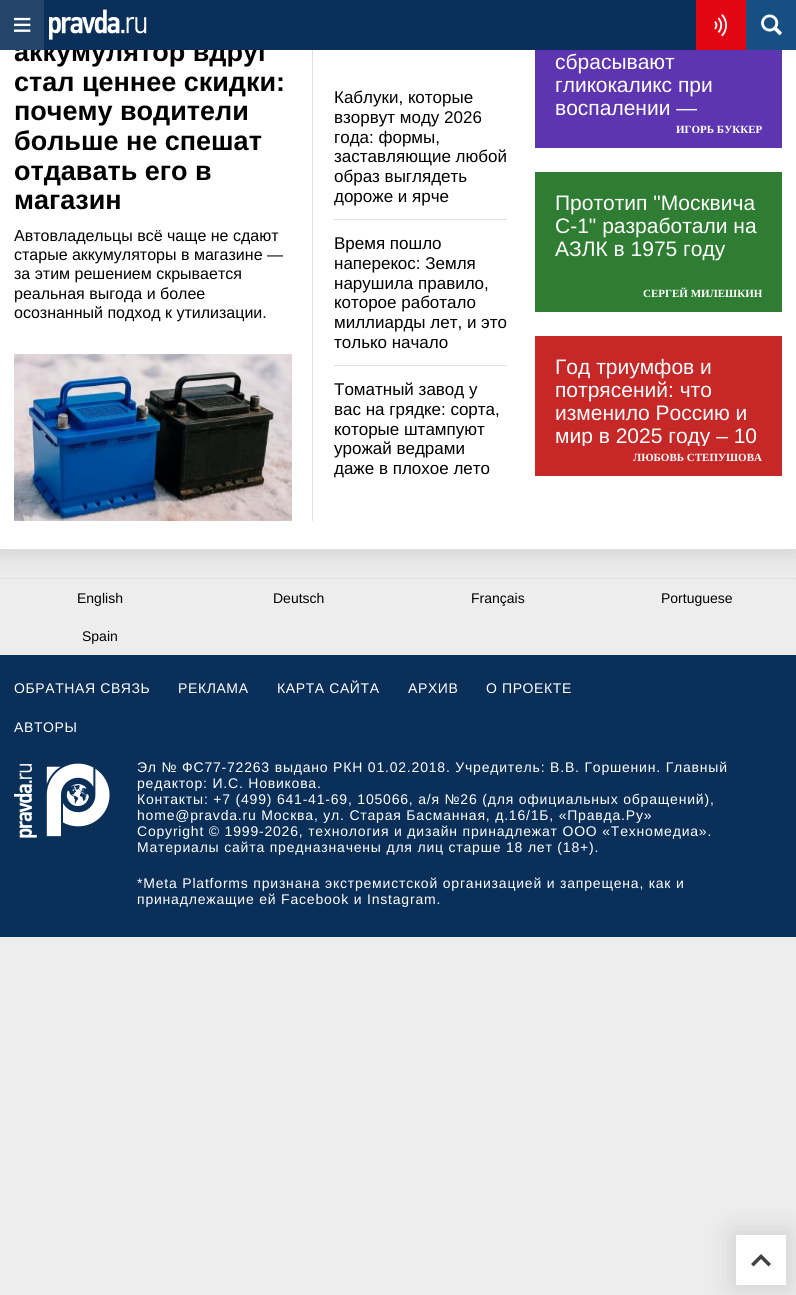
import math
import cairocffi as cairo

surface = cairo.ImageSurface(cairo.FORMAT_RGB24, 796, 1295)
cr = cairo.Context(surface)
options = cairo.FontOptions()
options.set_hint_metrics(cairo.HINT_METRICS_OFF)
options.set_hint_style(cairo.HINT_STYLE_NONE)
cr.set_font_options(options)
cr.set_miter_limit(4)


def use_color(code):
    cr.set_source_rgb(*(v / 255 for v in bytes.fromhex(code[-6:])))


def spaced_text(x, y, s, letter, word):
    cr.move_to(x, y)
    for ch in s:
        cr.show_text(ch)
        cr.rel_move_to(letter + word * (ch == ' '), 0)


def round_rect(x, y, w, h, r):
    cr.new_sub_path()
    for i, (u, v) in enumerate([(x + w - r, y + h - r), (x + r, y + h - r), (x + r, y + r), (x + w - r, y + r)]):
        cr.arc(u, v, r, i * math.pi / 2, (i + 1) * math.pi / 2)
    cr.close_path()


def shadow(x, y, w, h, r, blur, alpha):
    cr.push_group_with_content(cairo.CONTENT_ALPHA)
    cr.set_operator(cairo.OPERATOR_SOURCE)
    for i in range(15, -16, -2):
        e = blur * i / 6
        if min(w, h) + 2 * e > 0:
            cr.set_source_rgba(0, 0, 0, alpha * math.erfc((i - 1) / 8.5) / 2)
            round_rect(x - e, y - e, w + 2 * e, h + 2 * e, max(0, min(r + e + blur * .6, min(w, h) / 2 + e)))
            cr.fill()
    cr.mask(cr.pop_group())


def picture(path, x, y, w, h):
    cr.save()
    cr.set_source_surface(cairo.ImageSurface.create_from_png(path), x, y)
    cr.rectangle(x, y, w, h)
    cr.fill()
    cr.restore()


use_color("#ededed")
cr.paint()
use_color("#000000")
shadow(-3, -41, 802, 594, 0, 13.5, 0.13)
use_color("#ffffff")
cr.rectangle(0, 50, 796, 499)
cr.fill()
cr.select_font_face("Liberation Sans", cairo.FONT_SLANT_NORMAL, cairo.FONT_WEIGHT_BOLD)
cr.set_font_size(27)
use_color("#000000")
cr.move_to(14, 61)
cr.show_text("аккумулятор вдруг")
use_color("#0a305a")
cr.rectangle(44, 0, 652, 50)
cr.fill()
use_color("#23456b")
cr.rectangle(0, 0, 44, 50)
cr.fill()
picture("img1.png", 14, 17, 17, 15)
picture("img2.png", 49, 9, 98, 31)
use_color("#e20613")
cr.rectangle(696, 0, 50, 50)
cr.fill()
picture("img3.png", 714, 14, 13, 23)
use_color("#164f82")
cr.rectangle(746, 0, 50, 50)
cr.fill()
picture("img4.png", 761, 14, 21, 22)
use_color("#e0e0e0")
cr.rectangle(10, 549, 776, 1)
cr.fill()
use_color("#000000")
cr.move_to(14, 91)
cr.show_text("стал ценнее скидки:")
cr.move_to(14, 120)
cr.show_text("почему водители")
cr.move_to(14, 150)
cr.show_text("больше не спешат")
cr.move_to(14, 180)
cr.show_text("отдавать его в")
cr.move_to(14, 209)
cr.show_text("магазин")
cr.select_font_face("Liberation Sans")
cr.set_font_size(16)
cr.move_to(14, 241)
cr.show_text("Автовладельцы всё чаще не сдают")
cr.move_to(14, 260)
cr.show_text("старые аккумуляторы в магазине —")
cr.move_to(14, 279)
cr.show_text("за этим решением скрывается")
cr.move_to(14, 299)
cr.show_text("реальная выгода и более")
cr.move_to(14, 318)
cr.show_text("осознанный подход к утилизации.")
picture("img5.png", 14, 354, 278, 167)
use_color("#e0e0e0")
cr.rectangle(312, 50, 1, 471)
cr.fill()
cr.set_font_size(17)
use_color("#000000")
cr.move_to(334, 103)
cr.show_text("Каблуки, которые")
cr.move_to(334, 123)
cr.show_text("взорвут моду 2026")
cr.move_to(334, 143)
cr.show_text("года: формы,")
cr.move_to(334, 162)
cr.show_text("заставляющие любой")
cr.move_to(334, 182)
cr.show_text("образ выглядеть")
cr.move_to(334, 202)
cr.show_text("дороже и ярче")
use_color("#e0e0e0")
cr.rectangle(334, 219, 173, 1)
cr.fill()
use_color("#000000")
cr.move_to(334, 249)
cr.show_text("Время пошло")
cr.move_to(334, 269)
cr.show_text("наперекос: Земля")
cr.move_to(334, 289)
cr.show_text("нарушила правило,")
cr.move_to(334, 308)
cr.show_text("которое работало")
cr.move_to(334, 328)
cr.show_text("миллиарды лет, и это")
cr.move_to(334, 348)
cr.show_text("только начало")
use_color("#e0e0e0")
cr.rectangle(334, 365, 173, 1)
cr.fill()
use_color("#000000")
cr.move_to(334, 395)
cr.show_text("Томатный завод у")
cr.move_to(334, 415)
cr.show_text("вас на грядке: сорта,")
cr.move_to(334, 435)
cr.show_text("которые штампуют")
cr.move_to(334, 454)
cr.show_text("урожай ведрами")
cr.move_to(334, 474)
cr.show_text("даже в плохое лето")
use_color("#5e35b1")
cr.rectangle(535, 50, 247, 98)
cr.fill()
cr.set_font_size(21)
use_color("#ffffff")
cr.move_to(555, 69)
cr.show_text("сбрасывают")
cr.move_to(555, 92)
cr.show_text("гликокаликс при")
cr.move_to(555, 115)
cr.show_text("воспалении —")
cr.select_font_face("Liberation Serif", cairo.FONT_SLANT_NORMAL, cairo.FONT_WEIGHT_BOLD)
cr.set_font_size(11)
cr.move_to(676, 133)
cr.show_text("ИГОРЬ БУККЕР")
use_color("#2e7d32")
cr.rectangle(535, 172, 247, 140)
cr.fill()
cr.select_font_face("Liberation Sans")
cr.set_font_size(21)
use_color("#ffffff")
cr.move_to(555, 210)
cr.show_text("Прототип \"Москвича")
cr.move_to(555, 233)
cr.show_text("С-1\" разработали на")
cr.move_to(555, 256)
cr.show_text("АЗЛК в 1975 году")
cr.select_font_face("Liberation Serif", cairo.FONT_SLANT_NORMAL, cairo.FONT_WEIGHT_BOLD)
cr.set_font_size(11)
cr.move_to(643, 297)
cr.show_text("СЕРГЕЙ МИЛЕШКИН")
use_color("#c62828")
cr.rectangle(535, 336, 247, 140)
cr.fill()
cr.select_font_face("Liberation Sans")
cr.set_font_size(21)
use_color("#ffffff")
cr.move_to(555, 374)
cr.show_text("Год триумфов и")
cr.move_to(555, 397)
cr.show_text("потрясений: что")
cr.move_to(555, 420)
cr.show_text("изменило Россию и")
cr.save()
cr.rectangle(555, 356, 207, 90)
cr.clip()
cr.move_to(555, 443)
cr.show_text("мир в 2025 году – 10")
cr.restore()
cr.select_font_face("Liberation Serif", cairo.FONT_SLANT_NORMAL, cairo.FONT_WEIGHT_BOLD)
cr.set_font_size(11)
cr.move_to(633, 461)
cr.show_text("ЛЮБОВЬ СТЕПУШОВА")
use_color("#e0e0e0")
cr.rectangle(0, 578, 796, 1)
cr.fill()
cr.select_font_face("Liberation Sans")
cr.set_font_size(14)
use_color("#000000")
cr.move_to(77, 603)
cr.show_text("English")
cr.move_to(273, 603)
cr.show_text("Deutsch")
cr.move_to(471, 603)
cr.show_text("Français")
cr.move_to(661, 603)
cr.show_text("Portuguese")
cr.move_to(82, 641)
cr.show_text("Spain")
use_color("#0a305a")
cr.rectangle(0, 655, 796, 282)
cr.fill()
use_color("#ffffff")
spaced_text(14, 693, "ОБРАТНАЯ СВЯЗЬ", 0.6, 0)
spaced_text(178, 693, "РЕКЛАМА", 0.6, 0)
spaced_text(277, 693, "КАРТА САЙТА", 0.6, 0)
spaced_text(408, 693, "АРХИВ", 0.6, 0)
spaced_text(486, 693, "О ПРОЕКТЕ", 0.6, 0)
spaced_text(14, 732, "АВТОРЫ", 0.6, 0)
picture("img6.png", 14, 763, 96, 75)
spaced_text(137, 772, "Эл № ФС77-72263 выдано РКН 01.02.2018. Учредитель: В.В. Горшенин. Главный", 0.8, 0)
spaced_text(137, 788, "редактор: И.С. Новикова.", 0.8, 0)
spaced_text(137, 804, "Контакты: +7 (499) 641-41-69, 105066, а/я №26 (для официальных обращений),", 0.8, 0)
spaced_text(137, 820, "home@pravda.ru Москва, ул. Старая Басманная, д.16/1Б, «Правда.Ру»", 0.8, 0)
spaced_text(137, 836, "Copyright © 1999-2026, технология и дизайн принадлежат ООО «Техномедиа».", 0.8, 0)
spaced_text(137, 852, "Материалы сайта предназначены для лиц старше 18 лет (18+).", 0.8, 0)
spaced_text(137, 888, "*Meta Platforms признана экстремистской организацией и запрещена, как и", 0.8, 0)
spaced_text(137, 904, "принадлежащие ей Facebook и Instagram.", 0.8, 0)
use_color("#000000")
shadow(733, 1232, 56, 56, 0, 13.5, 0.13)
use_color("#ffffff")
cr.rectangle(736, 1235, 50, 50)
cr.fill()
use_color("#424242")
cr.new_path()
cr.move_to(761, 1254)
cr.line_to(771, 1264)
cr.line_to(768.5, 1266.5)
cr.line_to(761, 1259)
cr.line_to(753.5, 1266.5)
cr.line_to(751, 1264)
cr.close_path()
cr.fill()
surface.write_to_png("result.png")
